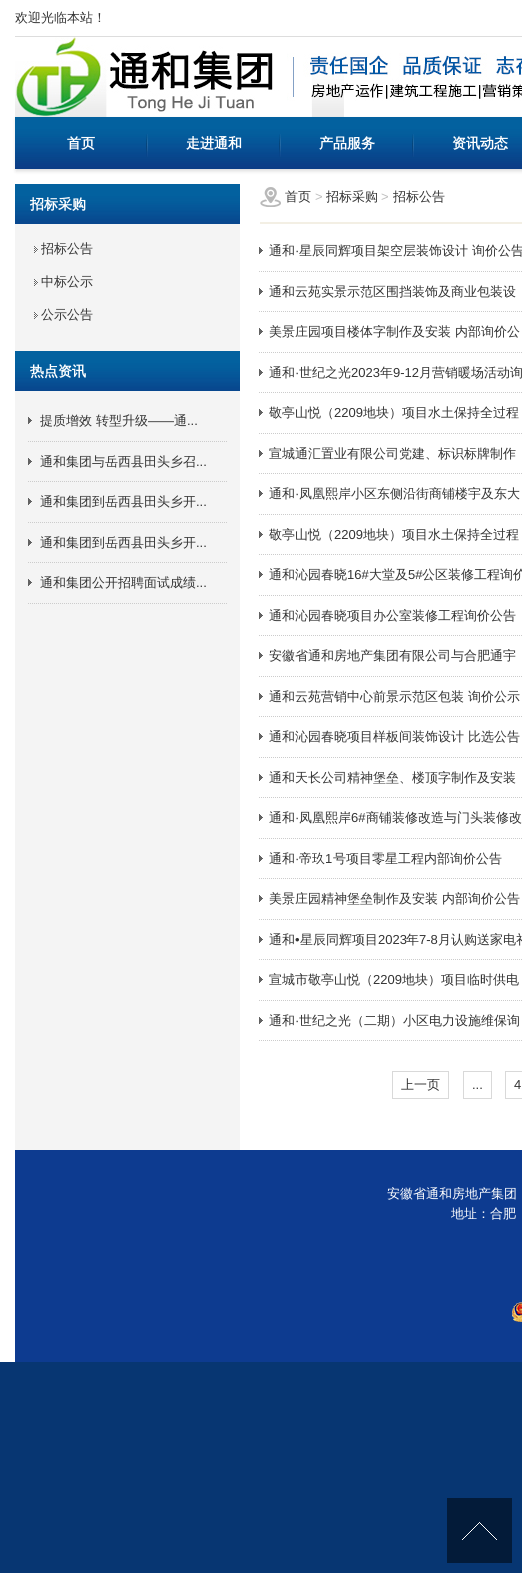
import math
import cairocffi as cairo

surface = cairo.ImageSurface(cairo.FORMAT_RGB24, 522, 1573)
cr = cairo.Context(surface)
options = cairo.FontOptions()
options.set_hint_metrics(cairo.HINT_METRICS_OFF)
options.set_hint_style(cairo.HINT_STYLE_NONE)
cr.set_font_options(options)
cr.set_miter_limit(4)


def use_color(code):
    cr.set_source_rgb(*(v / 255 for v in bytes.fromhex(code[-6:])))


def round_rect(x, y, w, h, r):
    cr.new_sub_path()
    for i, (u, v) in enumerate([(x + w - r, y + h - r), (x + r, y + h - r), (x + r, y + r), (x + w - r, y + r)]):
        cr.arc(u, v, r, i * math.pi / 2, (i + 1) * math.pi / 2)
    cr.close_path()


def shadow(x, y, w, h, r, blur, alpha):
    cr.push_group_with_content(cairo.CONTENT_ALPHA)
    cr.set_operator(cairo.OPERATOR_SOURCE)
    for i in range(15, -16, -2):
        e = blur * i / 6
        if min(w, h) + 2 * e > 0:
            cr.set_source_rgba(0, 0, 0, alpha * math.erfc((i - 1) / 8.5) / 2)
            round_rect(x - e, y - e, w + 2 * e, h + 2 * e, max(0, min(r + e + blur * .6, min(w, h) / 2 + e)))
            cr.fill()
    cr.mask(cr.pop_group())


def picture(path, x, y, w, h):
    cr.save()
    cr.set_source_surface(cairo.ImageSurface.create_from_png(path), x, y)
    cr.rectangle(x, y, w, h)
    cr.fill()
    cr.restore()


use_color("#073672")
cr.paint()
use_color("#ffffff")
cr.rectangle(0, 0, 522, 1362)
cr.fill()
use_color("#dddddd")
cr.rectangle(15, 36, 507, 1)
cr.fill()
cr.select_font_face("WenQuanYi Zen Hei Medium")
cr.set_font_size(13)
use_color("#333333")
cr.move_to(15, 22)
cr.show_text("欢迎光临本站！")
picture("img1.png", 15, 37, 507, 80)
use_color("#000000")
shadow(16, 119, 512, 52, 0, 2, 0.15)
picture("img2.png", 15, 117, 507, 52)
cr.select_font_face("WenQuanYi Zen Hei", cairo.FONT_SLANT_NORMAL, cairo.FONT_WEIGHT_BOLD)
cr.set_font_size(14)
use_color("#ffffff")
cr.move_to(67, 148)
cr.show_text("首页")
picture("img3.png", 146, 134, 2, 23)
cr.move_to(186, 148)
cr.show_text("走进通和")
picture("img3.png", 279, 134, 2, 23)
cr.move_to(319, 148)
cr.show_text("产品服务")
picture("img3.png", 412, 134, 2, 23)
cr.move_to(452, 148)
cr.show_text("资讯动态")
use_color("#f4f4f4")
cr.rectangle(15, 224, 225, 926)
cr.fill()
picture("img4.png", 15, 184, 225, 40)
use_color("#ffffff")
cr.move_to(30, 209)
cr.show_text("招标采购")
picture("img5.png", 34, 246, 4, 7)
cr.select_font_face("WenQuanYi Zen Hei Medium")
cr.set_font_size(13)
use_color("#333333")
cr.move_to(41, 253)
cr.show_text("招标公告")
picture("img5.png", 34, 279, 4, 7)
cr.move_to(41, 286)
cr.show_text("中标公示")
picture("img5.png", 34, 312, 4, 7)
cr.move_to(41, 319)
cr.show_text("公示公告")
picture("img4.png", 15, 351, 225, 40)
cr.select_font_face("WenQuanYi Zen Hei", cairo.FONT_SLANT_NORMAL, cairo.FONT_WEIGHT_BOLD)
cr.set_font_size(14)
use_color("#ffffff")
cr.move_to(30, 376)
cr.show_text("热点资讯")
picture("img6.png", 28, 417, 4, 7)
cr.new_path()
cr.move_to(28, 441.5)
cr.line_to(227, 441.5)
use_color("#cccccc")
cr.set_line_width(1)
cr.set_dash([1, 1])
cr.stroke()
cr.select_font_face("WenQuanYi Zen Hei Medium")
cr.set_font_size(13)
use_color("#333333")
cr.move_to(40, 425)
cr.show_text("提质增效 转型升级")
cr.select_font_face("Liberation Sans")
cr.move_to(148, 425)
cr.show_text("——")
cr.select_font_face("WenQuanYi Zen Hei Medium")
cr.move_to(174, 425)
cr.show_text("通")
cr.select_font_face("Liberation Sans")
cr.move_to(187, 425)
cr.show_text("...")
picture("img6.png", 28, 458, 4, 7)
cr.new_path()
cr.move_to(28, 481.5)
cr.line_to(227, 481.5)
use_color("#cccccc")
cr.stroke()
cr.select_font_face("WenQuanYi Zen Hei Medium")
use_color("#333333")
cr.move_to(40, 466)
cr.show_text("通和集团与岳西县田头乡召")
cr.select_font_face("Liberation Sans")
cr.move_to(196, 466)
cr.show_text("...")
picture("img6.png", 28, 498, 4, 7)
cr.new_path()
cr.move_to(28, 522.5)
cr.line_to(227, 522.5)
use_color("#cccccc")
cr.stroke()
cr.select_font_face("WenQuanYi Zen Hei Medium")
use_color("#333333")
cr.move_to(40, 506)
cr.show_text("通和集团到岳西县田头乡开")
cr.select_font_face("Liberation Sans")
cr.move_to(196, 506)
cr.show_text("...")
picture("img6.png", 28, 539, 4, 7)
cr.new_path()
cr.move_to(28, 562.5)
cr.line_to(227, 562.5)
use_color("#cccccc")
cr.stroke()
cr.select_font_face("WenQuanYi Zen Hei Medium")
use_color("#333333")
cr.move_to(40, 547)
cr.show_text("通和集团到岳西县田头乡开")
cr.select_font_face("Liberation Sans")
cr.move_to(196, 547)
cr.show_text("...")
picture("img6.png", 28, 579, 4, 7)
cr.new_path()
cr.move_to(28, 603.5)
cr.line_to(227, 603.5)
use_color("#cccccc")
cr.stroke()
cr.select_font_face("WenQuanYi Zen Hei Medium")
use_color("#333333")
cr.move_to(40, 587)
cr.show_text("通和集团公开招聘面试成绩")
cr.select_font_face("Liberation Sans")
cr.move_to(196, 587)
cr.show_text("...")
picture("img7.png", 260, 187, 21, 20)
use_color("#f3efe4")
cr.rectangle(260, 222, 262, 2)
cr.fill()
cr.select_font_face("WenQuanYi Zen Hei Medium")
use_color("#333333")
cr.move_to(285, 201)
cr.show_text("首页")
cr.select_font_face("Liberation Sans")
use_color("#bebebe")
cr.move_to(315, 201)
cr.show_text(">")
cr.select_font_face("WenQuanYi Zen Hei Medium")
use_color("#333333")
cr.move_to(326, 201)
cr.show_text("招标采购")
cr.select_font_face("Liberation Sans")
use_color("#bebebe")
cr.move_to(381, 201)
cr.show_text(">")
cr.select_font_face("WenQuanYi Zen Hei Medium")
use_color("#333333")
cr.move_to(393, 201)
cr.show_text("招标公告")
picture("img8.png", 259, 247, 4, 7)
cr.new_path()
cr.move_to(259, 271.5)
cr.line_to(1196, 271.5)
use_color("#cccccc")
cr.stroke()
use_color("#333333")
cr.move_to(269, 255)
cr.show_text("通和")
cr.select_font_face("Liberation Sans")
cr.move_to(295, 255)
cr.show_text("·")
cr.select_font_face("WenQuanYi Zen Hei Medium")
cr.move_to(299, 255)
cr.show_text("星辰同辉项目架空层装饰设计 询价公告")
picture("img8.png", 259, 288, 4, 7)
cr.new_path()
cr.move_to(259, 311.5)
cr.line_to(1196, 311.5)
use_color("#cccccc")
cr.stroke()
use_color("#333333")
cr.move_to(269, 296)
cr.show_text("通和云苑实景示范区围挡装饰及商业包装设")
picture("img8.png", 259, 328, 4, 7)
cr.new_path()
cr.move_to(259, 352.5)
cr.line_to(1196, 352.5)
use_color("#cccccc")
cr.stroke()
use_color("#333333")
cr.move_to(269, 336)
cr.show_text("美景庄园项目楼体字制作及安装 内部询价公")
picture("img8.png", 259, 369, 4, 7)
cr.new_path()
cr.move_to(259, 392.5)
cr.line_to(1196, 392.5)
use_color("#cccccc")
cr.stroke()
use_color("#333333")
cr.move_to(269, 377)
cr.show_text("通和")
cr.select_font_face("Liberation Sans")
cr.move_to(295, 377)
cr.show_text("·")
cr.select_font_face("WenQuanYi Zen Hei Medium")
cr.move_to(299, 377)
cr.show_text("世纪之光")
cr.select_font_face("Liberation Sans")
cr.move_to(351, 377)
cr.show_text("2023")
cr.select_font_face("WenQuanYi Zen Hei Medium")
cr.move_to(380, 377)
cr.show_text("年")
cr.select_font_face("Liberation Sans")
cr.move_to(393, 377)
cr.show_text("9-12")
cr.select_font_face("WenQuanYi Zen Hei Medium")
cr.move_to(419, 377)
cr.show_text("月营销暖场活动询")
picture("img8.png", 259, 409, 4, 7)
cr.new_path()
cr.move_to(259, 433.5)
cr.line_to(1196, 433.5)
use_color("#cccccc")
cr.stroke()
use_color("#333333")
cr.move_to(269, 417)
cr.show_text("敬亭山悦（")
cr.select_font_face("Liberation Sans")
cr.move_to(334, 417)
cr.show_text("2209")
cr.select_font_face("WenQuanYi Zen Hei Medium")
cr.move_to(363, 417)
cr.show_text("地块）项目水土保持全过程")
picture("img8.png", 259, 450, 4, 7)
cr.new_path()
cr.move_to(259, 473.5)
cr.line_to(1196, 473.5)
use_color("#cccccc")
cr.stroke()
use_color("#333333")
cr.move_to(269, 458)
cr.show_text("宣城通汇置业有限公司党建、标识标牌制作")
picture("img8.png", 259, 490, 4, 7)
cr.new_path()
cr.move_to(259, 514.5)
cr.line_to(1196, 514.5)
use_color("#cccccc")
cr.stroke()
use_color("#333333")
cr.move_to(269, 498)
cr.show_text("通和")
cr.select_font_face("Liberation Sans")
cr.move_to(295, 498)
cr.show_text("·")
cr.select_font_face("WenQuanYi Zen Hei Medium")
cr.move_to(299, 498)
cr.show_text("凤凰熙岸小区东侧沿街商铺楼宇及东大")
picture("img8.png", 259, 531, 4, 7)
cr.new_path()
cr.move_to(259, 554.5)
cr.line_to(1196, 554.5)
use_color("#cccccc")
cr.stroke()
use_color("#333333")
cr.move_to(269, 539)
cr.show_text("敬亭山悦（")
cr.select_font_face("Liberation Sans")
cr.move_to(334, 539)
cr.show_text("2209")
cr.select_font_face("WenQuanYi Zen Hei Medium")
cr.move_to(363, 539)
cr.show_text("地块）项目水土保持全过程")
picture("img8.png", 259, 571, 4, 7)
cr.new_path()
cr.move_to(259, 595.5)
cr.line_to(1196, 595.5)
use_color("#cccccc")
cr.stroke()
use_color("#333333")
cr.move_to(269, 579)
cr.show_text("通和沁园春晓")
cr.select_font_face("Liberation Sans")
cr.move_to(347, 579)
cr.show_text("16#")
cr.select_font_face("WenQuanYi Zen Hei Medium")
cr.move_to(369, 579)
cr.show_text("大堂及")
cr.select_font_face("Liberation Sans")
cr.move_to(408, 579)
cr.show_text("5#")
cr.select_font_face("WenQuanYi Zen Hei Medium")
cr.move_to(422, 579)
cr.show_text("公区装修工程询价")
picture("img8.png", 259, 612, 4, 7)
cr.new_path()
cr.move_to(259, 635.5)
cr.line_to(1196, 635.5)
use_color("#cccccc")
cr.stroke()
use_color("#333333")
cr.move_to(269, 620)
cr.show_text("通和沁园春晓项目办公室装修工程询价公告")
picture("img8.png", 259, 652, 4, 7)
cr.new_path()
cr.move_to(259, 676.5)
cr.line_to(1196, 676.5)
use_color("#cccccc")
cr.stroke()
use_color("#333333")
cr.move_to(269, 660)
cr.show_text("安徽省通和房地产集团有限公司与合肥通宇")
picture("img8.png", 259, 693, 4, 7)
cr.new_path()
cr.move_to(259, 716.5)
cr.line_to(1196, 716.5)
use_color("#cccccc")
cr.stroke()
use_color("#333333")
cr.move_to(269, 701)
cr.show_text("通和云苑营销中心前景示范区包装 询价公示")
picture("img8.png", 259, 733, 4, 7)
cr.new_path()
cr.move_to(259, 757.5)
cr.line_to(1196, 757.5)
use_color("#cccccc")
cr.stroke()
use_color("#333333")
cr.move_to(269, 741)
cr.show_text("通和沁园春晓项目样板间装饰设计 比选公告")
picture("img8.png", 259, 774, 4, 7)
cr.new_path()
cr.move_to(259, 797.5)
cr.line_to(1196, 797.5)
use_color("#cccccc")
cr.stroke()
use_color("#333333")
cr.move_to(269, 782)
cr.show_text("通和天长公司精神堡垒、楼顶字制作及安装")
picture("img8.png", 259, 814, 4, 7)
cr.new_path()
cr.move_to(259, 838.5)
cr.line_to(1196, 838.5)
use_color("#cccccc")
cr.stroke()
use_color("#333333")
cr.move_to(269, 822)
cr.show_text("通和")
cr.select_font_face("Liberation Sans")
cr.move_to(295, 822)
cr.show_text("·")
cr.select_font_face("WenQuanYi Zen Hei Medium")
cr.move_to(299, 822)
cr.show_text("凤凰熙岸")
cr.select_font_face("Liberation Sans")
cr.move_to(351, 822)
cr.show_text("6#")
cr.select_font_face("WenQuanYi Zen Hei Medium")
cr.move_to(366, 822)
cr.show_text("商铺装修改造与门头装修改")
picture("img8.png", 259, 855, 4, 7)
cr.new_path()
cr.move_to(259, 878.5)
cr.line_to(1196, 878.5)
use_color("#cccccc")
cr.stroke()
use_color("#333333")
cr.move_to(269, 863)
cr.show_text("通和")
cr.select_font_face("Liberation Sans")
cr.move_to(295, 863)
cr.show_text("·")
cr.select_font_face("WenQuanYi Zen Hei Medium")
cr.move_to(299, 863)
cr.show_text("帝玖")
cr.select_font_face("Liberation Sans")
cr.move_to(325, 863)
cr.show_text("1")
cr.select_font_face("WenQuanYi Zen Hei Medium")
cr.move_to(333, 863)
cr.show_text("号项目零星工程内部询价公告")
picture("img8.png", 259, 895, 4, 7)
cr.new_path()
cr.move_to(259, 919.5)
cr.line_to(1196, 919.5)
use_color("#cccccc")
cr.stroke()
use_color("#333333")
cr.move_to(269, 903)
cr.show_text("美景庄园精神堡垒制作及安装 内部询价公告")
picture("img8.png", 259, 936, 4, 7)
cr.new_path()
cr.move_to(259, 959.5)
cr.line_to(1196, 959.5)
use_color("#cccccc")
cr.stroke()
use_color("#333333")
cr.move_to(269, 944)
cr.show_text("通和")
cr.select_font_face("Liberation Sans")
cr.move_to(295, 944)
cr.show_text("•")
cr.select_font_face("WenQuanYi Zen Hei Medium")
cr.move_to(300, 944)
cr.show_text("星辰同辉项目")
cr.select_font_face("Liberation Sans")
cr.move_to(378, 944)
cr.show_text("2023")
cr.select_font_face("WenQuanYi Zen Hei Medium")
cr.move_to(406, 944)
cr.show_text("年")
cr.select_font_face("Liberation Sans")
cr.move_to(419, 944)
cr.show_text("7-8")
cr.select_font_face("WenQuanYi Zen Hei Medium")
cr.move_to(438, 944)
cr.show_text("月认购送家电礼")
picture("img8.png", 259, 976, 4, 7)
cr.new_path()
cr.move_to(259, 1000.5)
cr.line_to(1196, 1000.5)
use_color("#cccccc")
cr.stroke()
use_color("#333333")
cr.move_to(269, 984)
cr.show_text("宣城市敬亭山悦（")
cr.select_font_face("Liberation Sans")
cr.move_to(373, 984)
cr.show_text("2209")
cr.select_font_face("WenQuanYi Zen Hei Medium")
cr.move_to(402, 984)
cr.show_text("地块）项目临时供电")
picture("img8.png", 259, 1017, 4, 7)
cr.new_path()
cr.move_to(259, 1040.5)
cr.line_to(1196, 1040.5)
use_color("#cccccc")
cr.stroke()
use_color("#333333")
cr.move_to(269, 1025)
cr.show_text("通和")
cr.select_font_face("Liberation Sans")
cr.move_to(295, 1025)
cr.show_text("·")
cr.select_font_face("WenQuanYi Zen Hei Medium")
cr.move_to(299, 1025)
cr.show_text("世纪之光（二期）小区电力设施维保询")
cr.rectangle(392.5, 1071.5, 56, 27)
use_color("#d9d9d9")
cr.set_dash([])
cr.stroke()
use_color("#333333")
cr.move_to(401, 1089)
cr.show_text("上一页")
cr.rectangle(463.5, 1071.5, 28, 27)
use_color("#d9d9d9")
cr.stroke()
cr.select_font_face("Liberation Sans")
use_color("#333333")
cr.move_to(472, 1089)
cr.show_text("...")
cr.rectangle(505.5, 1071.5, 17, 27)
use_color("#d9d9d9")
cr.stroke()
use_color("#333333")
cr.move_to(514, 1089)
cr.show_text("4")
use_color("#0d3b90")
cr.rectangle(15, 1150, 507, 212)
cr.fill()
cr.select_font_face("WenQuanYi Zen Hei Medium")
use_color("#ffffff")
cr.move_to(387, 1198)
cr.show_text("安徽省通和房地产集团")
cr.move_to(451, 1218)
cr.show_text("地址：合肥")
picture("img9.png", 512, 1302, 10, 20)
picture("img10.png", 447, 1498, 65, 65)
surface.write_to_png("result.png")
